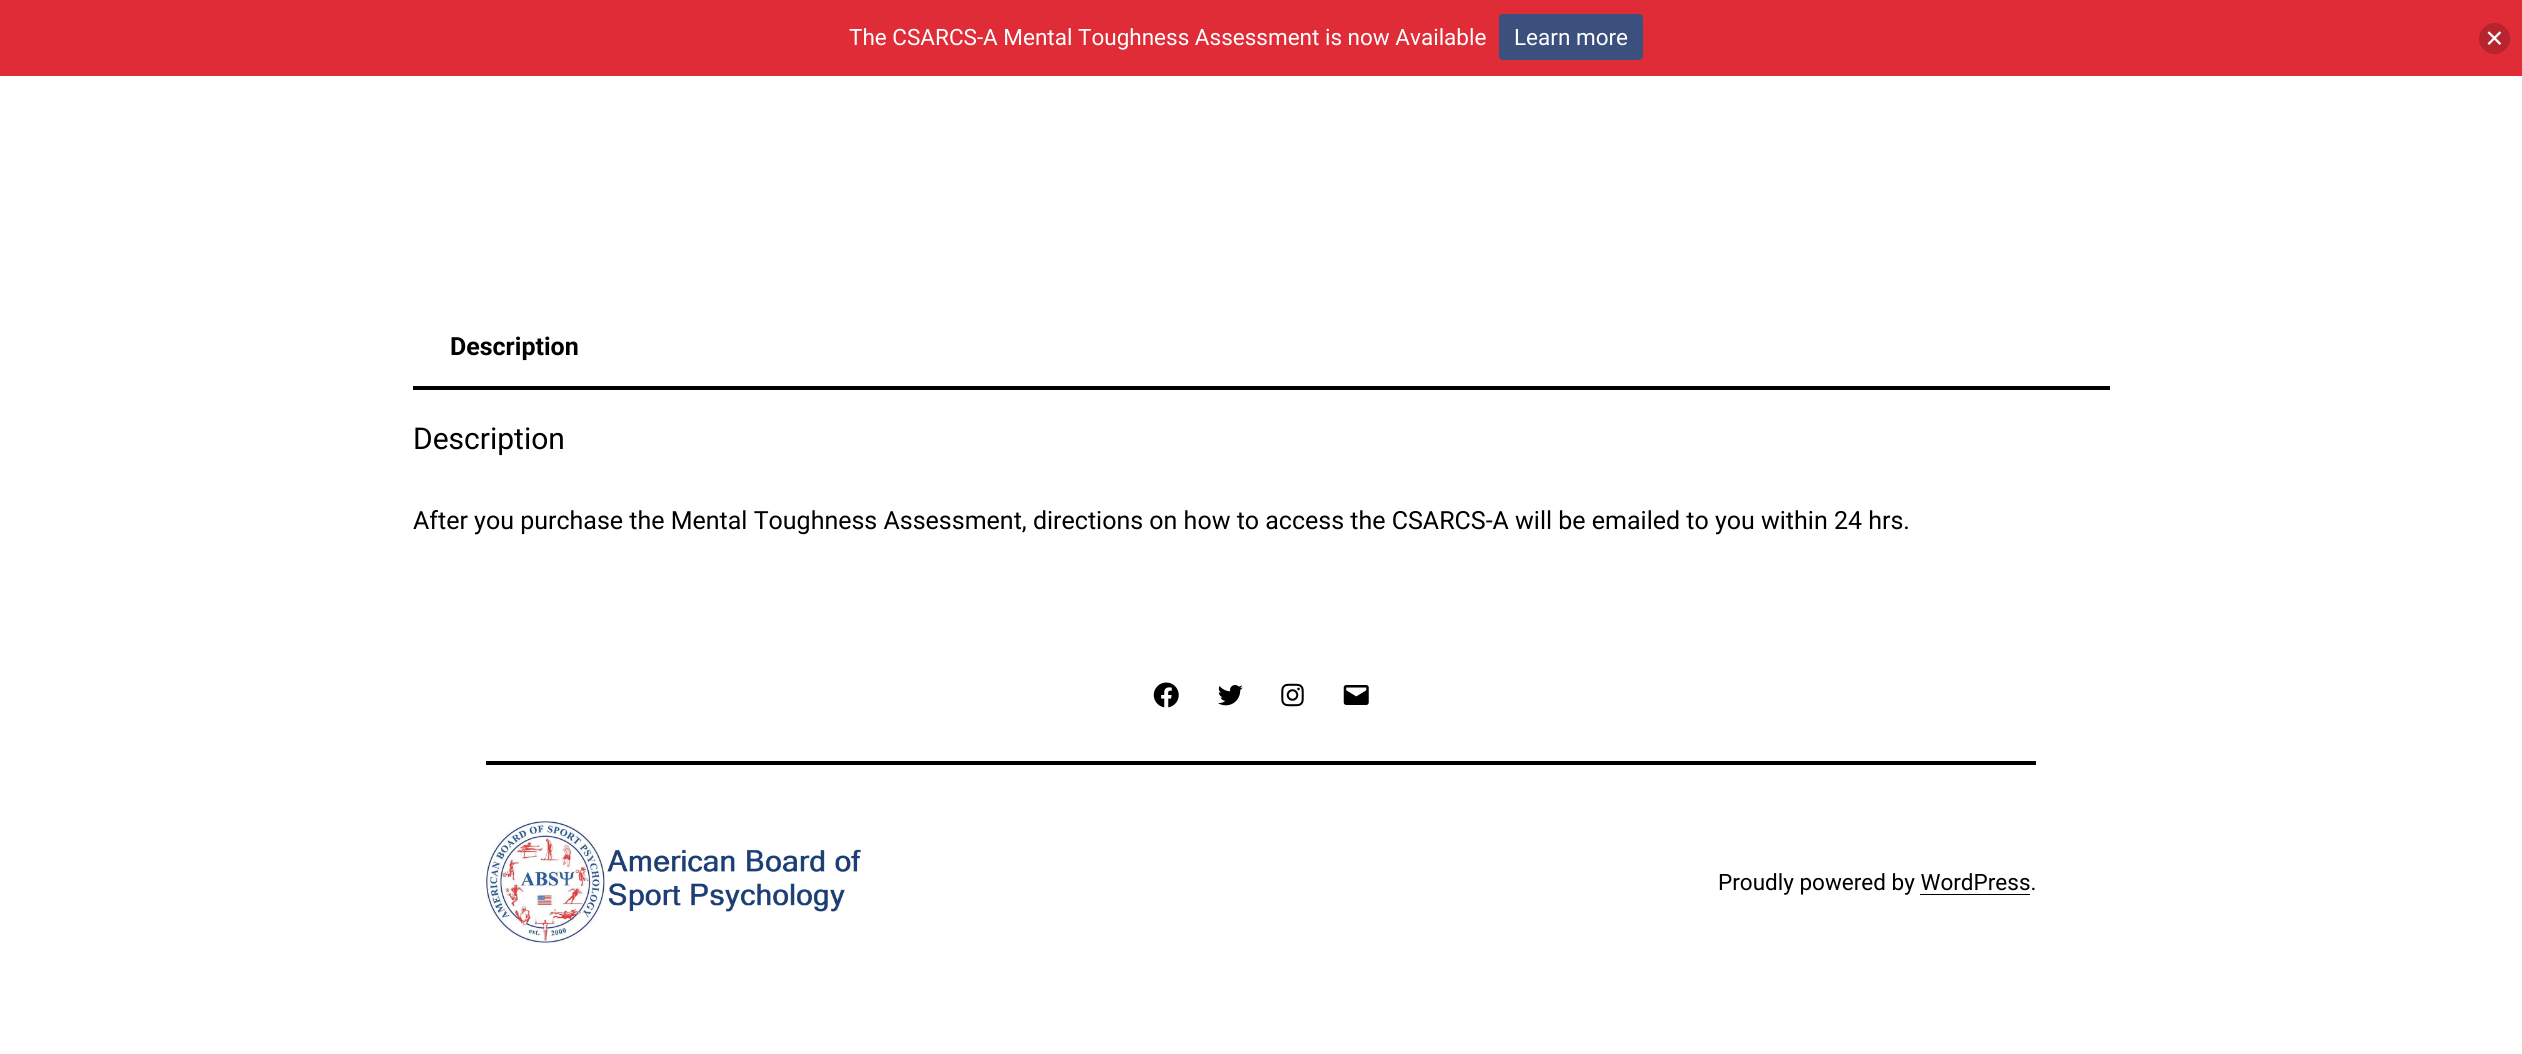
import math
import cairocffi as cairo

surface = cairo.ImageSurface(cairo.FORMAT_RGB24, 2522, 1054)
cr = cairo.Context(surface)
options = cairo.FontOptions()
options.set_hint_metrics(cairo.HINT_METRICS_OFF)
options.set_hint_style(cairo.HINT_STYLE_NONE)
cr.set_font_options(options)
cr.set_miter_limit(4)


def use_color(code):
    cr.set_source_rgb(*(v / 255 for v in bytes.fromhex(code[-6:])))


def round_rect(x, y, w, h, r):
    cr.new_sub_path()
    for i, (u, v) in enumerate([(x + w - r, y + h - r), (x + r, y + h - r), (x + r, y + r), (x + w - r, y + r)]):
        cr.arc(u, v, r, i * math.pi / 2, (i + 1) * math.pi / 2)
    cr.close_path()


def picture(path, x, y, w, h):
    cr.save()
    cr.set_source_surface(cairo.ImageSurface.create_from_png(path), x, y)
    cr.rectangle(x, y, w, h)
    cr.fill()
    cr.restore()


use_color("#ffffff")
cr.paint()
use_color("#df2c37")
cr.rectangle(0, 0, 2522, 76)
cr.fill()
cr.select_font_face("Roboto")
cr.set_font_size(22.5)
use_color("#ffffff")
cr.move_to(849, 45)
cr.show_text("The CSARCS-A Mental Toughness Assessment is now Available")
use_color("#3c507d")
round_rect(1499, 14, 144, 46, 4)
cr.fill()
use_color("#ffffff")
cr.move_to(1514, 45)
cr.show_text("Learn more")
use_color("#b7242d")
cr.new_path()
cr.arc(2494.5, 38.5, 15.5, 0, 2 * math.pi)
cr.fill()
picture("img1.png", 2487, 31, 15, 14)
use_color("#000000")
cr.rectangle(413, 386, 1697, 4)
cr.fill()
cr.select_font_face("Roboto", cairo.FONT_SLANT_NORMAL, cairo.FONT_WEIGHT_BOLD)
cr.set_font_size(25)
cr.move_to(450, 355)
cr.show_text("Description")
cr.select_font_face("Roboto")
cr.set_font_size(30)
cr.move_to(413, 449)
cr.show_text("Description")
cr.set_font_size(25)
cr.move_to(413, 529)
cr.show_text("After you purchase the Mental Toughness Assessment, directions on how to access the CSARCS-A will be emailed to you within 24 hrs.")
picture("img2.png", 1153, 682, 26, 26)
picture("img3.png", 1218, 685, 25, 21)
picture("img4.png", 1281, 683, 23, 24)
picture("img5.png", 1343, 685, 26, 20)
cr.rectangle(486, 761, 1550, 4)
cr.fill()
picture("img6.png", 486, 821, 376, 124)
cr.set_font_size(22.5)
cr.move_to(1718, 890)
cr.show_text("Proudly powered by WordPress.")
cr.rectangle(1920, 894, 110, 1)
cr.fill()
surface.write_to_png("result.png")
